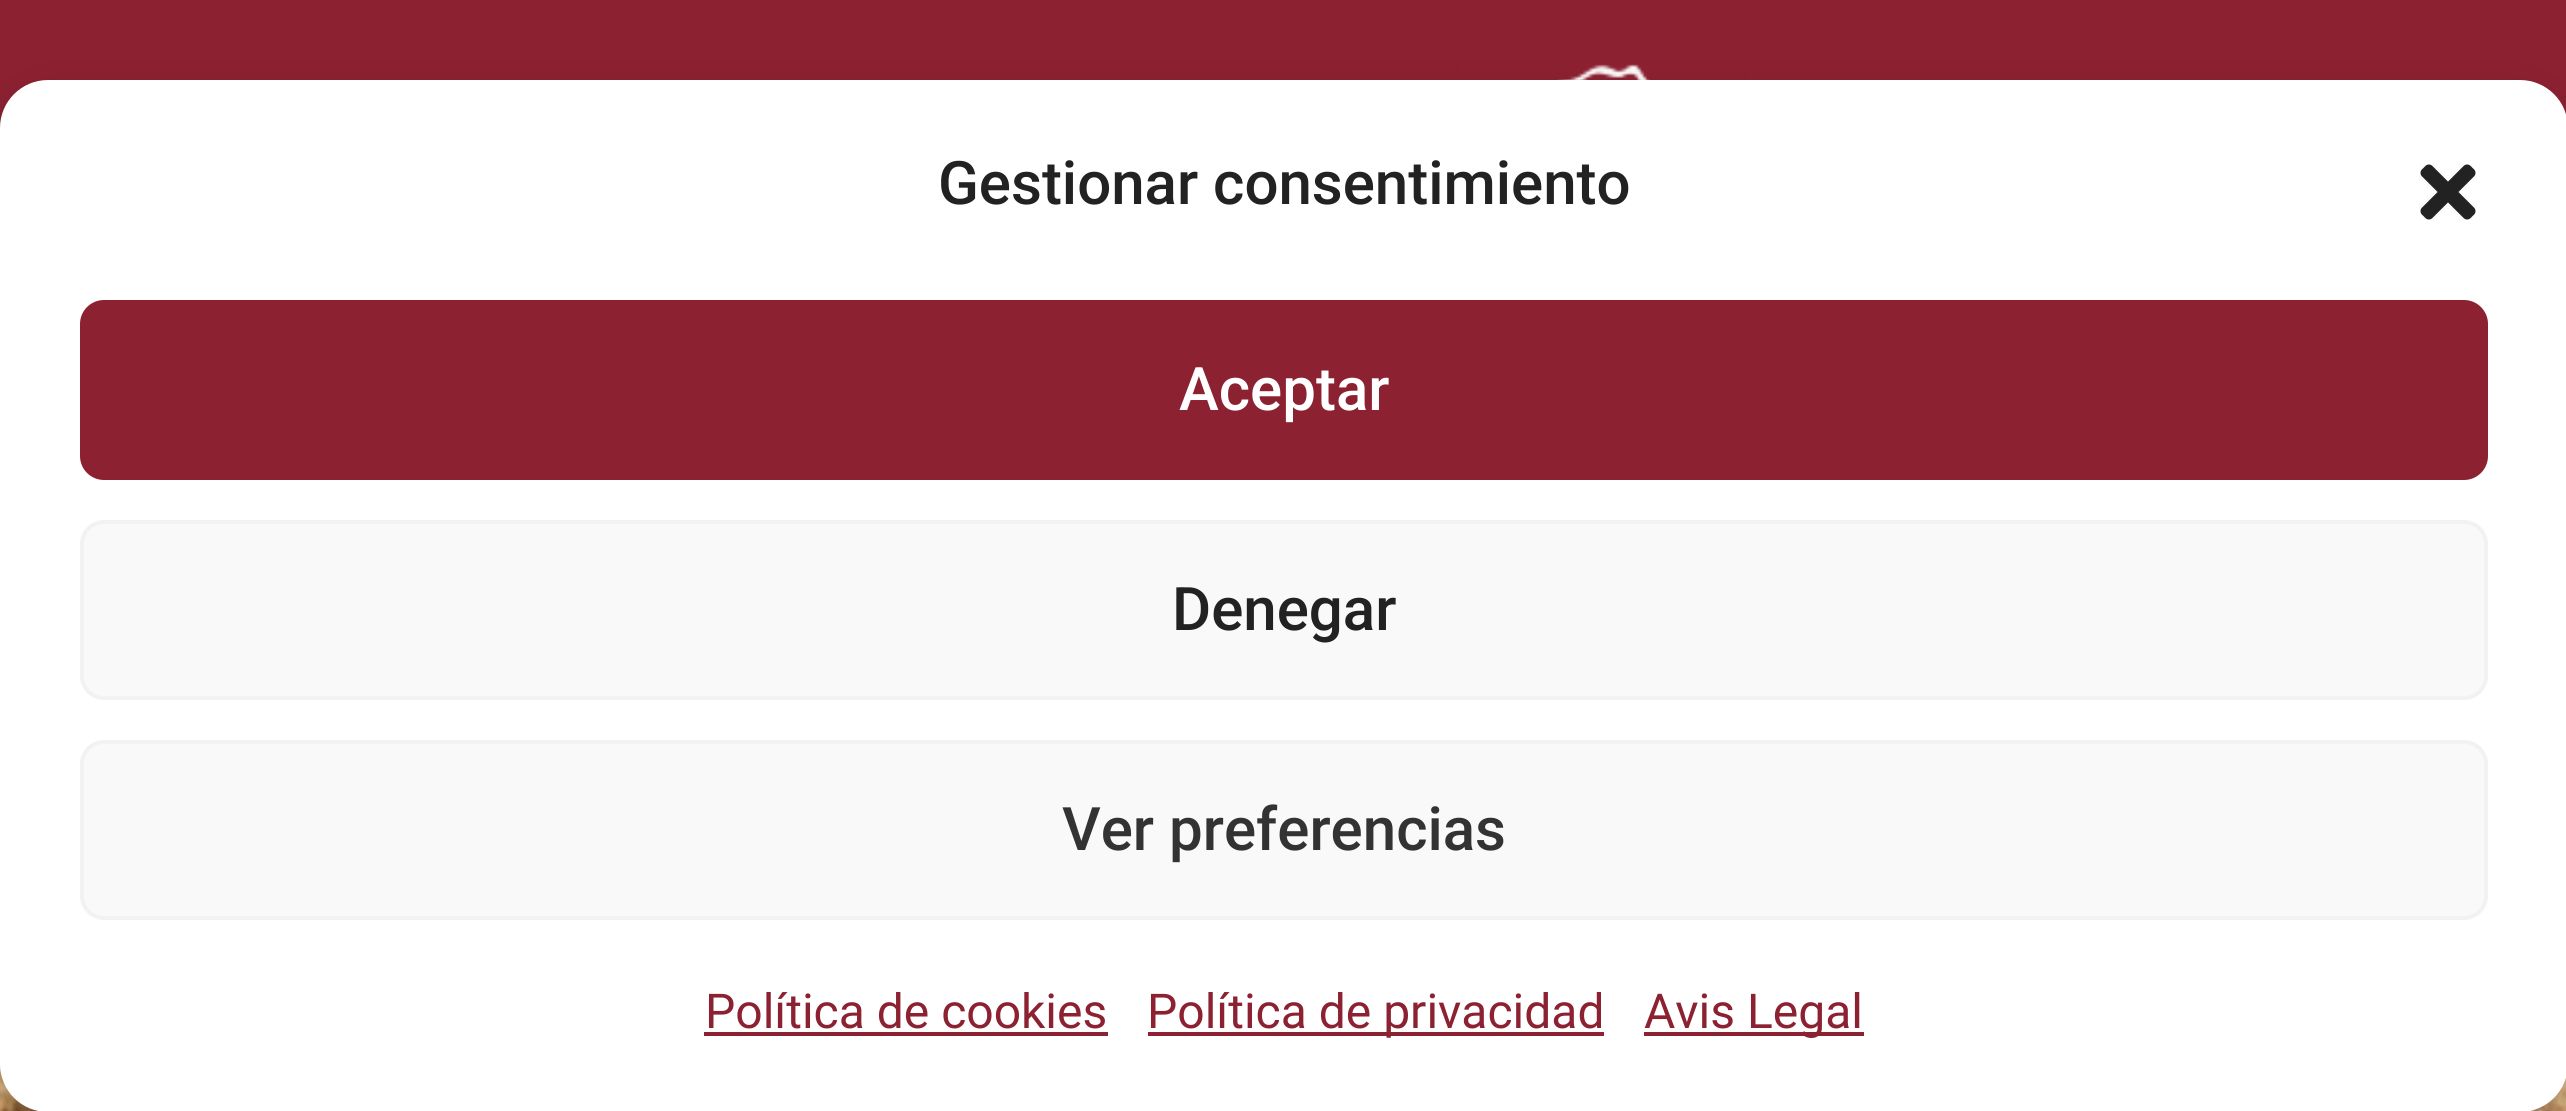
import math
import cairocffi as cairo

surface = cairo.ImageSurface(cairo.FORMAT_RGB24, 2566, 1111)
cr = cairo.Context(surface)
options = cairo.FontOptions()
options.set_hint_metrics(cairo.HINT_METRICS_OFF)
options.set_hint_style(cairo.HINT_STYLE_NONE)
cr.set_font_options(options)
cr.set_miter_limit(4)


def use_color(code):
    cr.set_source_rgb(*(v / 255 for v in bytes.fromhex(code[-6:])))


def round_rect(x, y, w, h, r):
    cr.new_sub_path()
    for i, (u, v) in enumerate([(x + w - r, y + h - r), (x + r, y + h - r), (x + r, y + r), (x + w - r, y + r)]):
        cr.arc(u, v, r, i * math.pi / 2, (i + 1) * math.pi / 2)
    cr.close_path()


def shadow(x, y, w, h, r, blur, alpha):
    cr.push_group_with_content(cairo.CONTENT_ALPHA)
    cr.set_operator(cairo.OPERATOR_SOURCE)
    for i in range(15, -16, -2):
        e = blur * i / 6
        if min(w, h) + 2 * e > 0:
            cr.set_source_rgba(0, 0, 0, alpha * math.erfc((i - 1) / 8.5) / 2)
            round_rect(x - e, y - e, w + 2 * e, h + 2 * e, max(0, min(r + e + blur * .6, min(w, h) / 2 + e)))
            cr.fill()
    cr.mask(cr.pop_group())


def picture(path, x, y, w, h):
    cr.save()
    cr.set_source_surface(cairo.ImageSurface.create_from_png(path), x, y)
    cr.rectangle(x, y, w, h)
    cr.fill()
    cr.restore()


use_color("#ffffff")
cr.paint()
use_color("#8c2131")
cr.rectangle(0, 0, 2566, 128)
cr.fill()
picture("img1.png", 1456, 64, 290, 16)
picture("img2.png", 0, 1064, 2566, 47)
use_color("#000000")
shadow(0, 104, 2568, 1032, 48, 12, 0.23)
shadow(0, 120, 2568, 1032, 48, 40, 0.19)
use_color("#ffffff")
round_rect(0, 80, 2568, 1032, 48)
cr.fill()
cr.select_font_face("Roboto Medium")
cr.set_font_size(60)
use_color("#222222")
cr.move_to(938, 204)
cr.show_text("Gestionar consentimiento")
picture("img3.png", 2420, 164, 56, 56)
use_color("#8c2131")
round_rect(82, 302, 2404, 176, 22)
cr.fill_preserve()
cr.set_line_width(4)
cr.stroke()
use_color("#ffffff")
cr.move_to(1179, 410)
cr.show_text("Aceptar")
use_color("#f9f9f9")
round_rect(82, 522, 2404, 176, 22)
cr.fill_preserve()
use_color("#f2f2f2")
cr.stroke()
use_color("#222222")
cr.move_to(1172, 630)
cr.show_text("Denegar")
use_color("#f9f9f9")
round_rect(82, 742, 2404, 176, 22)
cr.fill_preserve()
use_color("#f2f2f2")
cr.stroke()
use_color("#333333")
cr.move_to(1062, 850)
cr.show_text("Ver preferencias")
cr.select_font_face("Roboto")
cr.set_font_size(48)
use_color("#8c2131")
cr.move_to(705, 1028)
cr.show_text("Política de cookies")
cr.rectangle(704, 1032, 404, 4)
cr.fill()
cr.rectangle(1148, 1032, 456, 4)
cr.fill()
cr.move_to(1147, 1028)
cr.show_text("Política de privacidad")
cr.rectangle(1644, 1032, 220, 4)
cr.fill()
cr.move_to(1644, 1028)
cr.show_text("Avis Legal")
surface.write_to_png("result.png")
